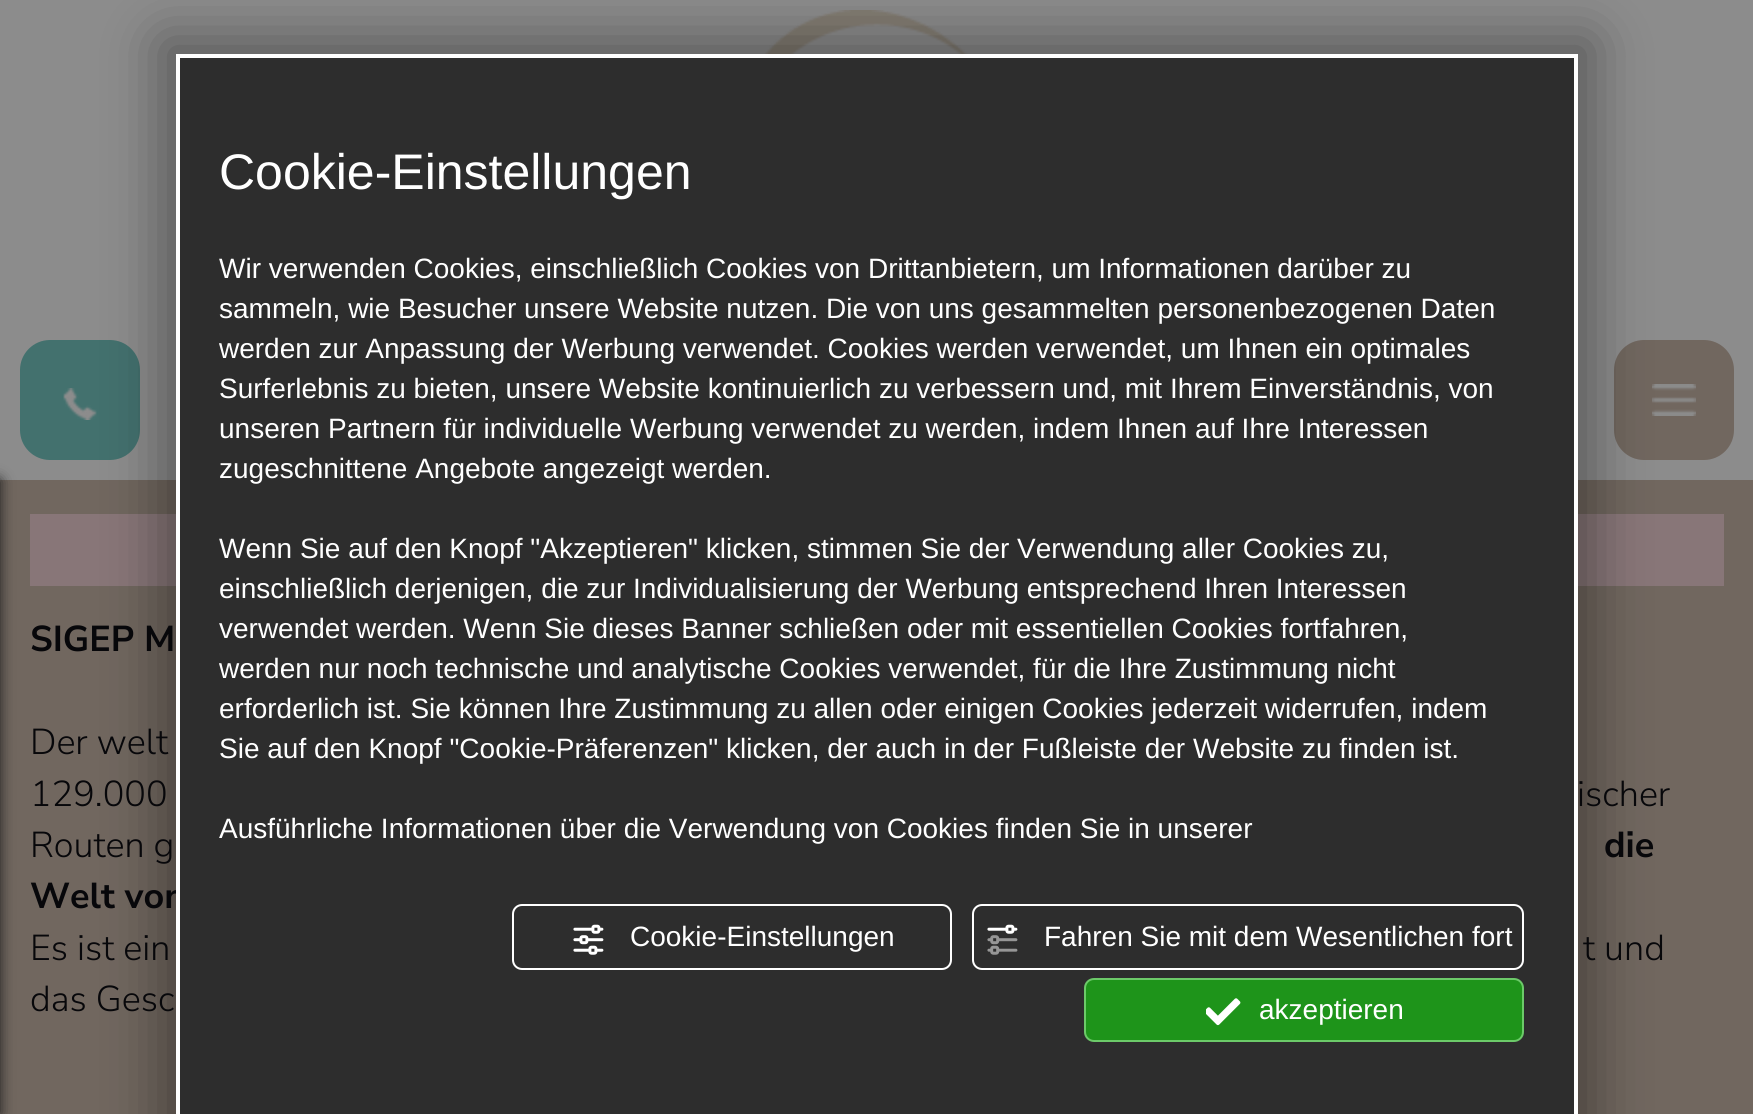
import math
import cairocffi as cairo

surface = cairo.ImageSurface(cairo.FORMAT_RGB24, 1753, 1114)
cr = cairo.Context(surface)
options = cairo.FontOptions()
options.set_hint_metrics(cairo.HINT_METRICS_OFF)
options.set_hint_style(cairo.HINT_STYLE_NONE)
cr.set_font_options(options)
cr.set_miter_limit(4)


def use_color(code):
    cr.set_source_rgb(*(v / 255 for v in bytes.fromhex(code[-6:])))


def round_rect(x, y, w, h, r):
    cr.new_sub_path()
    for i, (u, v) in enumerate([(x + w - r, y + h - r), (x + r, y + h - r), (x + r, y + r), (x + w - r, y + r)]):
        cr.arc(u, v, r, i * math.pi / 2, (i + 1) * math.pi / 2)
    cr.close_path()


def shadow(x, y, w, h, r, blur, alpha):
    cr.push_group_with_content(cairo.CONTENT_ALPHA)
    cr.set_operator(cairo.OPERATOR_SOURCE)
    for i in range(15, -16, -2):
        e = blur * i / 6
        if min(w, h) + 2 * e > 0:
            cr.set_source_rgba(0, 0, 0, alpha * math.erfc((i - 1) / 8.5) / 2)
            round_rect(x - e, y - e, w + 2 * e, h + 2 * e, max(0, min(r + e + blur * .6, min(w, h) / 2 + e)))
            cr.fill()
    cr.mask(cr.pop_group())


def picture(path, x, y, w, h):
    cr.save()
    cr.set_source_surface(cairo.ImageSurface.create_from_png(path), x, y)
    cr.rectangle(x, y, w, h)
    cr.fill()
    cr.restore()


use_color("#71675f")
cr.paint()
use_color("#8c8c8c")
cr.rectangle(0, 0, 1753, 480)
cr.fill()
picture("img4.png", 764, 10, 204, 44)
use_color("#43716e")
round_rect(20, 340, 120, 120, 30)
cr.fill()
picture("img5.png", 63, 388, 34, 32)
use_color("#71675f")
round_rect(1614, 340, 120, 120, 30)
cr.fill()
picture("img6.png", 1652, 384, 44, 32)
use_color("#887678")
cr.rectangle(30, 514, 1694, 72)
cr.fill()
use_color("#000000")
shadow(162, 40, 1430, 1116, 0, 29, 0.38)
cr.select_font_face("Nunito Sans", cairo.FONT_SLANT_NORMAL, cairo.FONT_WEIGHT_BOLD)
cr.set_font_size(36)
use_color("#07070a")
cr.move_to(30, 908)
cr.show_text("Welt von")
use_color("#2d2d2d")
cr.rectangle(178, 56, 1398, 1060)
cr.fill_preserve()
use_color("#ffffff")
cr.set_line_width(4)
cr.stroke()
cr.select_font_face("Liberation Sans")
cr.set_font_size(50)
cr.move_to(219, 189)
cr.show_text("Cookie-Einstellungen")
cr.set_font_size(28)
cr.move_to(219, 278)
cr.show_text("Wir verwenden Cookies, einschließlich Cookies von Drittanbietern, um Informationen darüber zu")
cr.move_to(219, 318)
cr.show_text("sammeln, wie Besucher unsere Website nutzen. Die von uns gesammelten personenbezogenen Daten")
cr.move_to(219, 358)
cr.show_text("werden zur Anpassung der Werbung verwendet. Cookies werden verwendet, um Ihnen ein optimales")
cr.move_to(219, 398)
cr.show_text("Surferlebnis zu bieten, unsere Website kontinuierlich zu verbessern und, mit Ihrem Einverständnis, von")
cr.move_to(219, 438)
cr.show_text("unseren Partnern für individuelle Werbung verwendet zu werden, indem Ihnen auf Ihre Interessen")
cr.move_to(219, 478)
cr.show_text("zugeschnittene Angebote angezeigt werden.")
cr.move_to(219, 558)
cr.show_text("Wenn Sie auf den Knopf \"Akzeptieren\" klicken, stimmen Sie der Verwendung aller Cookies zu,")
cr.move_to(219, 598)
cr.show_text("einschließlich derjenigen, die zur Individualisierung der Werbung entsprechend Ihren Interessen")
cr.move_to(219, 638)
cr.show_text("verwendet werden. Wenn Sie dieses Banner schließen oder mit essentiellen Cookies fortfahren,")
cr.move_to(219, 678)
cr.show_text("werden nur noch technische und analytische Cookies verwendet, für die Ihre Zustimmung nicht")
cr.move_to(219, 718)
cr.show_text("erforderlich ist. Sie können Ihre Zustimmung zu allen oder einigen Cookies jederzeit widerrufen, indem")
cr.move_to(219, 758)
cr.show_text("Sie auf den Knopf \"Cookie-Präferenzen\" klicken, der auch in der Fußleiste der Website zu finden ist.")
cr.move_to(219, 838)
cr.show_text("Ausführliche Informationen über die Verwendung von Cookies finden Sie in unserer")
round_rect(513, 905, 438, 64, 9)
cr.set_line_width(2)
cr.stroke()
picture("img1.png", 573, 924, 31, 31)
cr.move_to(630, 946)
cr.show_text("Cookie-Einstellungen")
round_rect(973, 905, 550, 64, 9)
cr.stroke()
picture("img2.png", 987, 924, 31, 31)
cr.move_to(1044, 946)
cr.show_text("Fahren Sie mit dem Wesentlichen fort")
use_color("#1e941a")
round_rect(1085, 979, 438, 62, 9)
cr.fill_preserve()
use_color("#6cca69")
cr.stroke()
picture("img3.png", 1206, 998, 35, 28)
use_color("#ffffff")
cr.move_to(1259, 1019)
cr.show_text("akzeptieren")
use_color("#1c1c1c")
shadow(-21, 480, 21, 634, 0, 7, 1)
cr.select_font_face("Nunito Sans", cairo.FONT_SLANT_NORMAL, cairo.FONT_WEIGHT_BOLD)
cr.set_font_size(36)
use_color("#07070a")
cr.move_to(30, 651)
cr.show_text("SIGEP M")
cr.select_font_face("Nunito Sans Light")
cr.move_to(30, 754)
cr.show_text("Der welt")
cr.move_to(30, 806)
cr.show_text("129.000")
cr.move_to(1577, 806)
cr.show_text("ischer")
cr.move_to(30, 857)
cr.show_text("Routen g")
cr.select_font_face("Nunito Sans", cairo.FONT_SLANT_NORMAL, cairo.FONT_WEIGHT_BOLD)
cr.move_to(1604, 857)
cr.show_text("die")
cr.select_font_face("Nunito Sans Light")
cr.move_to(30, 960)
cr.show_text("Es ist ein")
cr.move_to(1583, 960)
cr.show_text("t und")
cr.move_to(30, 1011)
cr.show_text("das Gesc")
surface.write_to_png("result.png")
